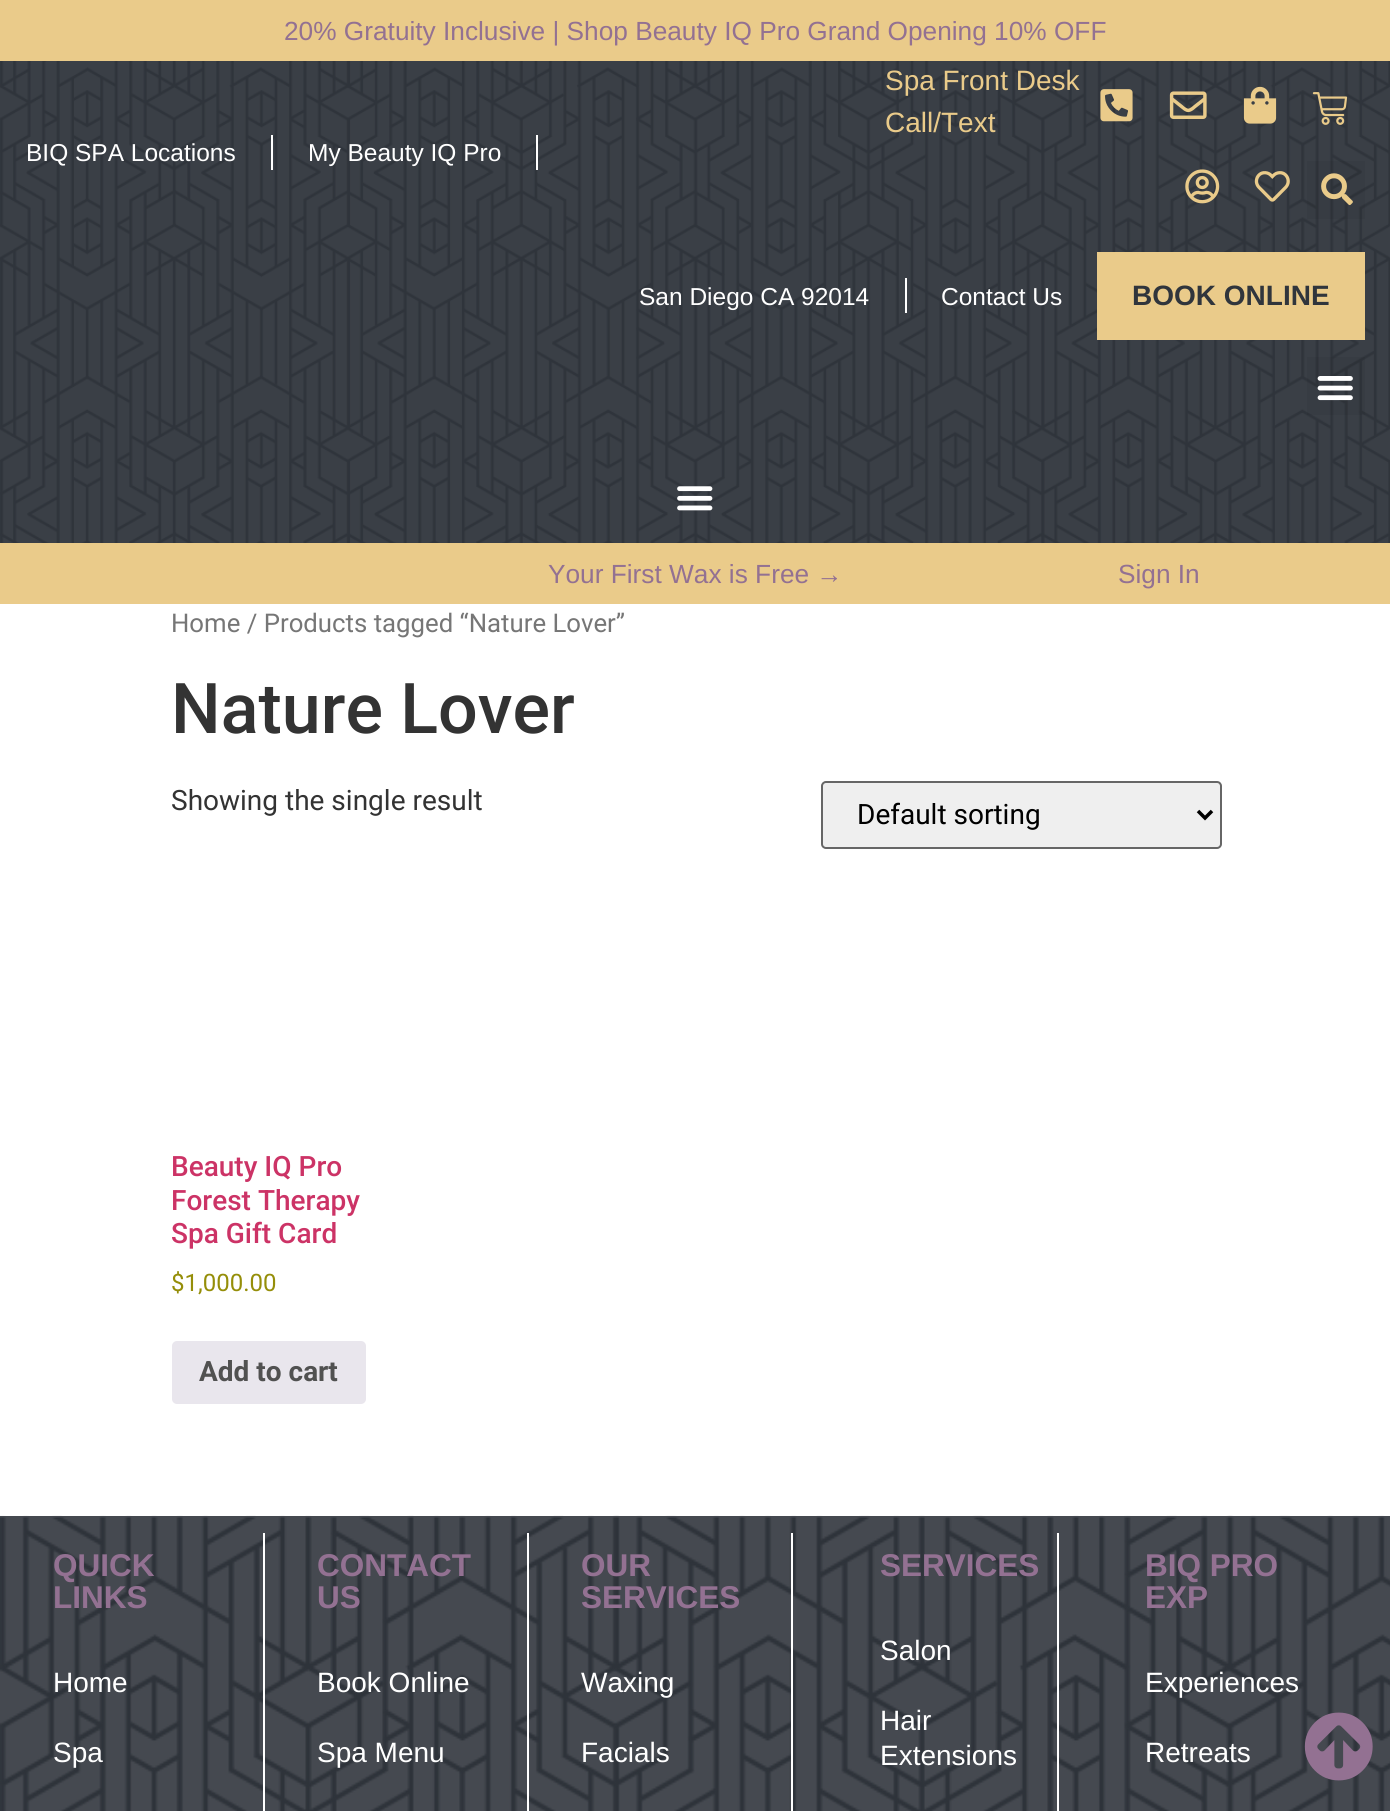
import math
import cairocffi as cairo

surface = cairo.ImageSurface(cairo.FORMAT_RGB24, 1390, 1811)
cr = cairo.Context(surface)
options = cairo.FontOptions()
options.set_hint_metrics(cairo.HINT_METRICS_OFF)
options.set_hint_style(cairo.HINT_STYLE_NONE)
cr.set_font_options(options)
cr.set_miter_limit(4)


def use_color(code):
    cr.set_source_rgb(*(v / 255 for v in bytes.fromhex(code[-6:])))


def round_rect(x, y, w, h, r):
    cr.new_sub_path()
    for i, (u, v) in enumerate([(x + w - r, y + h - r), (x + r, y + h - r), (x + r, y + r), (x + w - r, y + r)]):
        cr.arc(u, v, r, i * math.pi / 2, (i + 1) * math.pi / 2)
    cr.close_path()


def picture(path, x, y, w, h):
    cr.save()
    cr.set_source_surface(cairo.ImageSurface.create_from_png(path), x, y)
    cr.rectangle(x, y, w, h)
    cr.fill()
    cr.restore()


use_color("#ffffff")
cr.paint()
use_color("#454950")
cr.rectangle(0, 1516, 1390, 295)
cr.fill()
use_color("#3a3f46")
cr.rectangle(0, 61, 1390, 482)
cr.fill()
picture("img1.png", 0, 61, 1390, 482)
use_color("#eacb8a")
cr.rectangle(0, 0, 1390, 61)
cr.fill()
cr.select_font_face("Liberation Sans")
cr.set_font_size(26.25)
use_color("#937192")
cr.move_to(284, 40)
cr.show_text("20% Gratuity Inclusive | Shop Beauty IQ Pro Grand Opening 10% OFF")
cr.set_font_size(28)
use_color("#eacb8a")
cr.move_to(885, 90)
cr.show_text("Spa Front Desk")
cr.move_to(885, 132)
cr.show_text("Call/Text")
picture("img2.png", 1100, 89, 33, 33)
picture("img3.png", 1169, 91, 38, 28)
picture("img4.png", 1243, 86, 34, 38)
picture("img5.png", 1312, 92, 36, 33)
picture("img6.png", 1185, 169, 35, 35)
picture("img7.png", 1254, 171, 36, 31)
cr.set_source_rgba(0, 0, 0, 0.05)
cr.rectangle(1307, 161, 58, 58)
cr.fill()
picture("img8.png", 1321, 173, 32, 33)
use_color("#ffffff")
cr.rectangle(271, 135, 2, 35)
cr.fill()
cr.set_font_size(24.5)
cr.move_to(26, 161)
cr.show_text("BIQ SPA Locations")
cr.rectangle(536, 135, 2, 35)
cr.fill()
cr.move_to(308, 161)
cr.show_text("My Beauty IQ Pro")
cr.move_to(639, 305)
cr.show_text("San Diego CA 92014")
cr.rectangle(905, 278, 2, 35)
cr.fill()
cr.move_to(941, 305)
cr.show_text("Contact Us")
use_color("#eacb8a")
cr.rectangle(1097, 252, 268, 88)
cr.fill()
cr.select_font_face("Liberation Sans", cairo.FONT_SLANT_NORMAL, cairo.FONT_WEIGHT_BOLD)
cr.set_font_size(28)
use_color("#30353c")
cr.move_to(1132, 305)
cr.show_text("BOOK ONLINE")
cr.set_source_rgba(0, 0, 0, 0.05)
cr.rectangle(1307, 357, 58, 58)
cr.fill()
picture("img9.png", 1317, 376, 36, 25)
picture("img10.png", 677, 486, 36, 25)
use_color("#eacb8a")
cr.rectangle(0, 543, 1390, 61)
cr.fill()
cr.select_font_face("Liberation Sans")
cr.set_font_size(26.25)
use_color("#937192")
cr.move_to(548, 583)
cr.show_text("Your First Wax is Free →")
cr.move_to(1118, 583)
cr.show_text("Sign In")
cr.select_font_face("Roboto")
cr.set_font_size(25.75)
use_color("#767676")
cr.move_to(171, 632)
cr.show_text("Home / Products tagged “Nature Lover”")
cr.select_font_face("Roboto Medium")
cr.set_font_size(70)
use_color("#333333")
cr.move_to(171, 733)
cr.show_text("Nature Lover")
cr.select_font_face("Roboto")
cr.set_font_size(28)
cr.move_to(171, 810)
cr.show_text("Showing the single result")
use_color("#efefef")
round_rect(822, 782, 399, 66, 4)
cr.fill_preserve()
use_color("#666666")
cr.stroke()
cr.new_path()
cr.move_to(1198, 811)
cr.line_to(1205, 818)
cr.line_to(1212, 811)
use_color("#000000")
cr.set_line_width(3.5)
cr.stroke()
cr.move_to(857, 824)
cr.show_text("Default sorting")
cr.select_font_face("Roboto Medium")
use_color("#cc3366")
cr.move_to(171, 1176)
cr.show_text("Beauty IQ Pro")
cr.move_to(171, 1210)
cr.show_text("Forest Therapy")
cr.move_to(171, 1243)
cr.show_text("Spa Gift Card")
cr.select_font_face("Roboto")
cr.set_font_size(24)
use_color("#958e09")
cr.move_to(171, 1291)
cr.show_text("$1,000.00")
use_color("#e9e6ed")
round_rect(172, 1341, 194, 63, 5)
cr.fill()
cr.select_font_face("Roboto", cairo.FONT_SLANT_NORMAL, cairo.FONT_WEIGHT_BOLD)
cr.set_font_size(28)
use_color("#515151")
cr.move_to(199, 1381)
cr.show_text("Add to cart")
picture("img11.png", 0, 1515, 1390, 296)
use_color("#ffffff")
cr.rectangle(263, 1533, 2, 278)
cr.fill()
cr.select_font_face("Liberation Sans", cairo.FONT_SLANT_NORMAL, cairo.FONT_WEIGHT_BOLD)
cr.set_font_size(31.5)
use_color("#937192")
cr.move_to(53, 1576)
cr.show_text("QUICK")
cr.move_to(53, 1608)
cr.show_text("LINKS")
cr.select_font_face("Liberation Sans")
cr.set_font_size(28)
use_color("#ffffff")
cr.move_to(53, 1692)
cr.show_text("Home")
cr.move_to(53, 1762)
cr.show_text("Spa")
cr.rectangle(527, 1533, 2, 278)
cr.fill()
cr.select_font_face("Liberation Sans", cairo.FONT_SLANT_NORMAL, cairo.FONT_WEIGHT_BOLD)
cr.set_font_size(31.5)
use_color("#937192")
cr.move_to(317, 1576)
cr.show_text("CONTACT")
cr.move_to(317, 1608)
cr.show_text("US")
cr.select_font_face("Liberation Sans")
cr.set_font_size(28)
use_color("#ffffff")
cr.move_to(317, 1692)
cr.show_text("Book Online")
cr.move_to(317, 1762)
cr.show_text("Spa Menu")
cr.rectangle(791, 1533, 2, 278)
cr.fill()
cr.select_font_face("Liberation Sans", cairo.FONT_SLANT_NORMAL, cairo.FONT_WEIGHT_BOLD)
cr.set_font_size(31.5)
use_color("#937192")
cr.move_to(581, 1576)
cr.show_text("OUR")
cr.move_to(581, 1608)
cr.show_text("SERVICES")
cr.select_font_face("Liberation Sans")
cr.set_font_size(28)
use_color("#ffffff")
cr.move_to(581, 1692)
cr.show_text("Waxing")
cr.move_to(581, 1762)
cr.show_text("Facials")
cr.rectangle(1057, 1533, 2, 278)
cr.fill()
cr.select_font_face("Liberation Sans", cairo.FONT_SLANT_NORMAL, cairo.FONT_WEIGHT_BOLD)
cr.set_font_size(31.5)
use_color("#937192")
cr.move_to(880, 1576)
cr.show_text("SERVICES")
cr.select_font_face("Liberation Sans")
cr.set_font_size(28)
use_color("#ffffff")
cr.move_to(880, 1660)
cr.show_text("Salon")
cr.move_to(880, 1730)
cr.show_text("Hair")
cr.move_to(880, 1765)
cr.show_text("Extensions")
cr.select_font_face("Liberation Sans", cairo.FONT_SLANT_NORMAL, cairo.FONT_WEIGHT_BOLD)
cr.set_font_size(31.5)
use_color("#937192")
cr.move_to(1145, 1576)
cr.show_text("BIQ PRO")
cr.move_to(1145, 1608)
cr.show_text("EXP")
cr.select_font_face("Liberation Sans")
cr.set_font_size(28)
use_color("#ffffff")
cr.move_to(1145, 1692)
cr.show_text("Experiences")
cr.move_to(1145, 1762)
cr.show_text("Retreats")
picture("img12.png", 1304, 1712, 69, 69)
surface.write_to_png("result.png")
